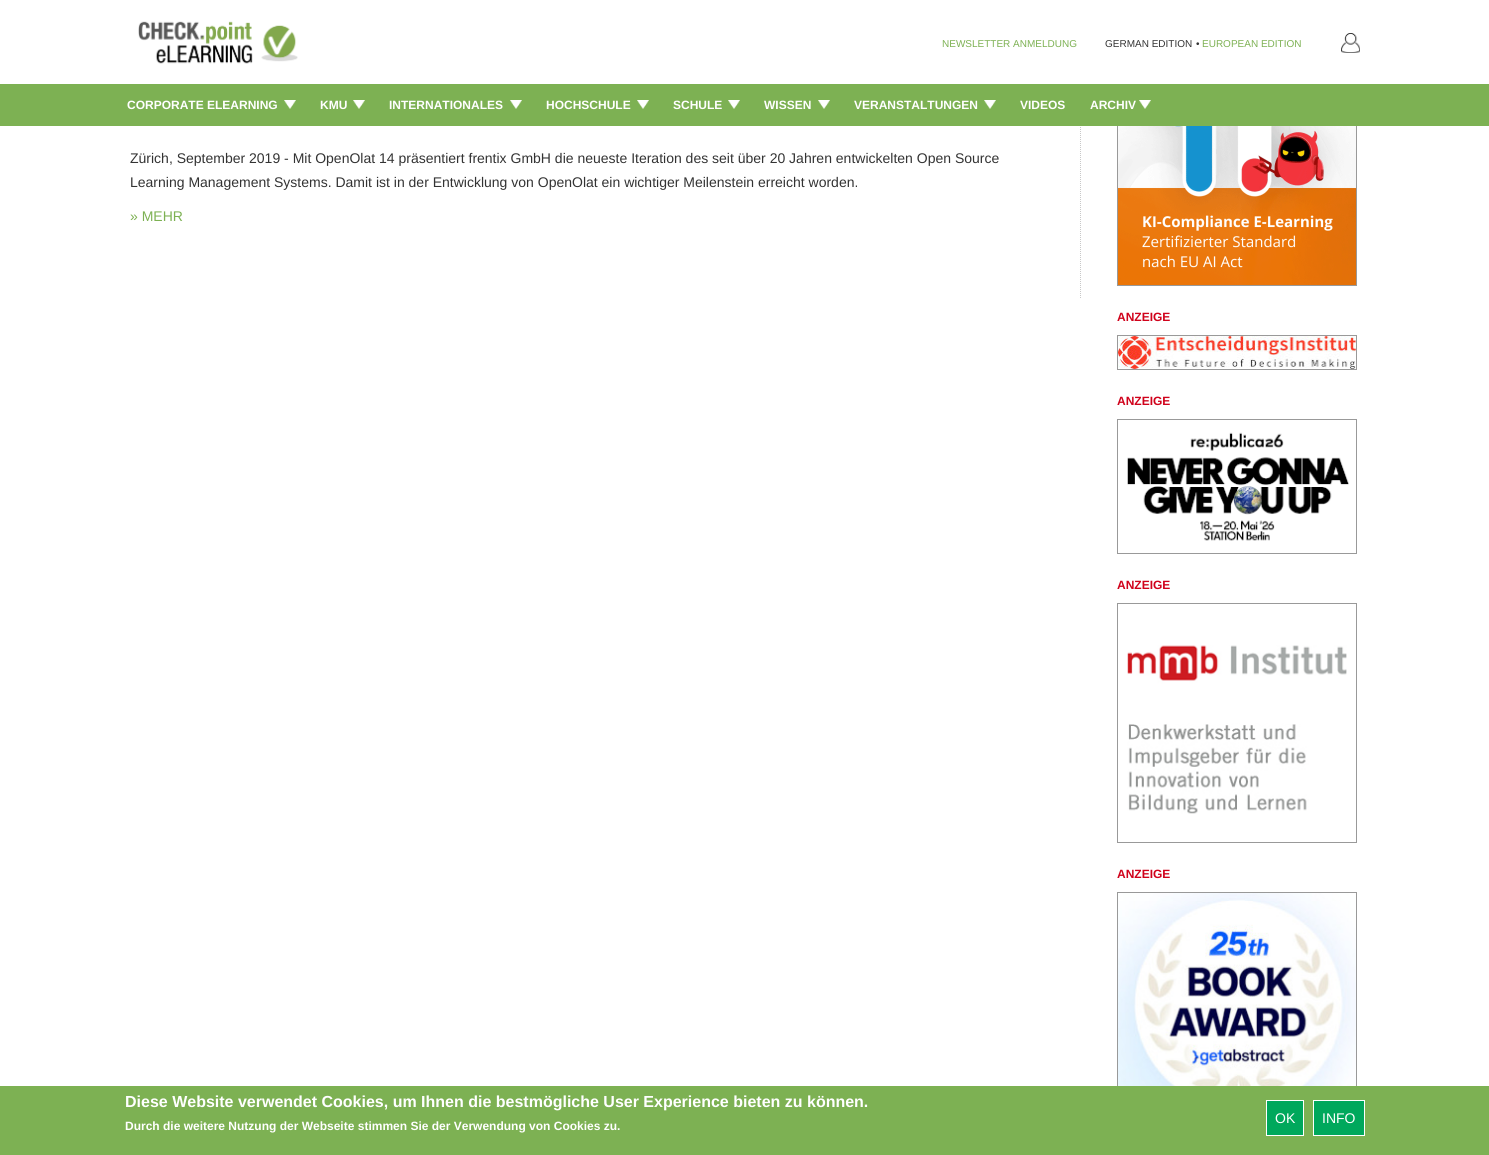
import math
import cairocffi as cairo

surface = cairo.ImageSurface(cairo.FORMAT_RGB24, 1489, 1155)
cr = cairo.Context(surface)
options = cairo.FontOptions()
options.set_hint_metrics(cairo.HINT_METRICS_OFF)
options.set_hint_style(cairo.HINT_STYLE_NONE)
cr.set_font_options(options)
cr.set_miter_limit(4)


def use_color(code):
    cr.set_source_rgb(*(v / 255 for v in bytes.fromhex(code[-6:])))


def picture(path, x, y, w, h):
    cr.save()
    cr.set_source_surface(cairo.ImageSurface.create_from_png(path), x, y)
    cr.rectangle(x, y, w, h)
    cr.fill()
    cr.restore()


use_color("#ffffff")
cr.paint()
cr.new_path()
cr.move_to(1080.5, -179)
cr.line_to(1080.5, 298)
use_color("#c8c8c8")
cr.set_line_width(1)
cr.set_dash([1, 1])
cr.stroke()
cr.rectangle(1117.5, 46.5, 239, 239)
use_color("#999999")
cr.set_dash([])
cr.stroke()
use_color("#ffffff")
cr.rectangle(1080, 1, 277, 83)
cr.fill()
picture("img1.png", 138, 21, 160, 43)
cr.select_font_face("Liberation Sans")
cr.set_font_size(10)
use_color("#7db153")
cr.move_to(942, 47)
cr.show_text("NEWSLETTER ANMELDUNG")
use_color("#333333")
cr.move_to(1105, 47)
cr.show_text("GERMAN EDITION")
cr.move_to(1196, 47)
cr.show_text("•")
use_color("#7db153")
cr.move_to(1202, 47)
cr.show_text("EUROPEAN EDITION")
picture("img2.png", 1341, 33, 19, 20)
cr.rectangle(0, 84, 1489, 42)
cr.fill()
cr.select_font_face("Liberation Sans", cairo.FONT_SLANT_NORMAL, cairo.FONT_WEIGHT_BOLD)
cr.set_font_size(12)
use_color("#ffffff")
cr.move_to(127, 109)
cr.show_text("CORPORATE ELEARNING")
picture("img3.png", 284, 100, 12, 9)
cr.move_to(320, 109)
cr.show_text("KMU")
picture("img3.png", 353, 100, 12, 9)
cr.move_to(389, 109)
cr.show_text("INTERNATIONALES")
picture("img3.png", 510, 100, 12, 9)
cr.move_to(546, 109)
cr.show_text("HOCHSCHULE")
picture("img3.png", 637, 100, 12, 9)
cr.move_to(673, 109)
cr.show_text("SCHULE")
picture("img3.png", 728, 100, 12, 9)
cr.move_to(764, 109)
cr.show_text("WISSEN")
picture("img3.png", 818, 100, 12, 9)
cr.move_to(854, 109)
cr.show_text("VERANSTALTUNGEN")
picture("img3.png", 984, 100, 12, 9)
cr.move_to(1020, 109)
cr.show_text("VIDEOS")
cr.move_to(1090, 109)
cr.show_text("ARCHIV")
picture("img3.png", 1139, 100, 12, 9)
cr.select_font_face("Liberation Sans")
cr.set_font_size(14)
use_color("#333333")
cr.move_to(130, 163)
cr.show_text("Zürich, September 2019 - Mit OpenOlat 14 präsentiert frentix GmbH die neueste Iteration des seit über 20 Jahren entwickelten Open Source")
cr.move_to(130, 187)
cr.show_text("Learning Management Systems. Damit ist in der Entwicklung von OpenOlat ein wichtiger Meilenstein erreicht worden.")
use_color("#7db153")
cr.move_to(130, 221)
cr.show_text("» MEHR")
picture("img4.png", 1118, 126, 238, 159)
cr.select_font_face("Liberation Sans", cairo.FONT_SLANT_NORMAL, cairo.FONT_WEIGHT_BOLD)
cr.set_font_size(12)
use_color("#d0021b")
cr.move_to(1117, 321)
cr.show_text("ANZEIGE")
cr.rectangle(1117.5, 335.5, 239, 34)
use_color("#999999")
cr.stroke()
picture("img5.png", 1118, 336, 238, 33)
use_color("#d0021b")
cr.move_to(1117, 405)
cr.show_text("ANZEIGE")
cr.rectangle(1117.5, 419.5, 239, 134)
use_color("#999999")
cr.stroke()
picture("img6.png", 1127, 432, 222, 109)
use_color("#d0021b")
cr.move_to(1117, 589)
cr.show_text("ANZEIGE")
cr.rectangle(1117.5, 603.5, 239, 239)
use_color("#999999")
cr.stroke()
picture("img7.png", 1127, 645, 220, 169)
use_color("#d0021b")
cr.move_to(1117, 878)
cr.show_text("ANZEIGE")
cr.rectangle(1117.5, 892.5, 239, 224)
use_color("#999999")
cr.stroke()
picture("img8.png", 1118, 893, 238, 193)
use_color("#7db153")
cr.rectangle(0, 1086, 1489, 69)
cr.fill()
cr.set_font_size(16)
use_color("#ffffff")
cr.move_to(125, 1107)
cr.show_text("Diese Website verwendet Cookies, um Ihnen die bestmögliche User Experience bieten zu können.")
cr.set_font_size(12)
cr.move_to(125, 1130)
cr.show_text("Durch die weitere Nutzung der Webseite stimmen Sie der Verwendung von Cookies zu.")
use_color("#00a85c")
cr.rectangle(1266.5, 1100.5, 37, 35)
cr.fill_preserve()
use_color("#ffffff")
cr.stroke()
cr.select_font_face("Liberation Sans")
cr.set_font_size(14)
cr.move_to(1275, 1123)
cr.show_text("OK")
use_color("#00a85c")
cr.rectangle(1313.5, 1100.5, 51, 35)
cr.fill_preserve()
use_color("#ffffff")
cr.stroke()
cr.move_to(1322, 1123)
cr.show_text("INFO")
surface.write_to_png("result.png")
